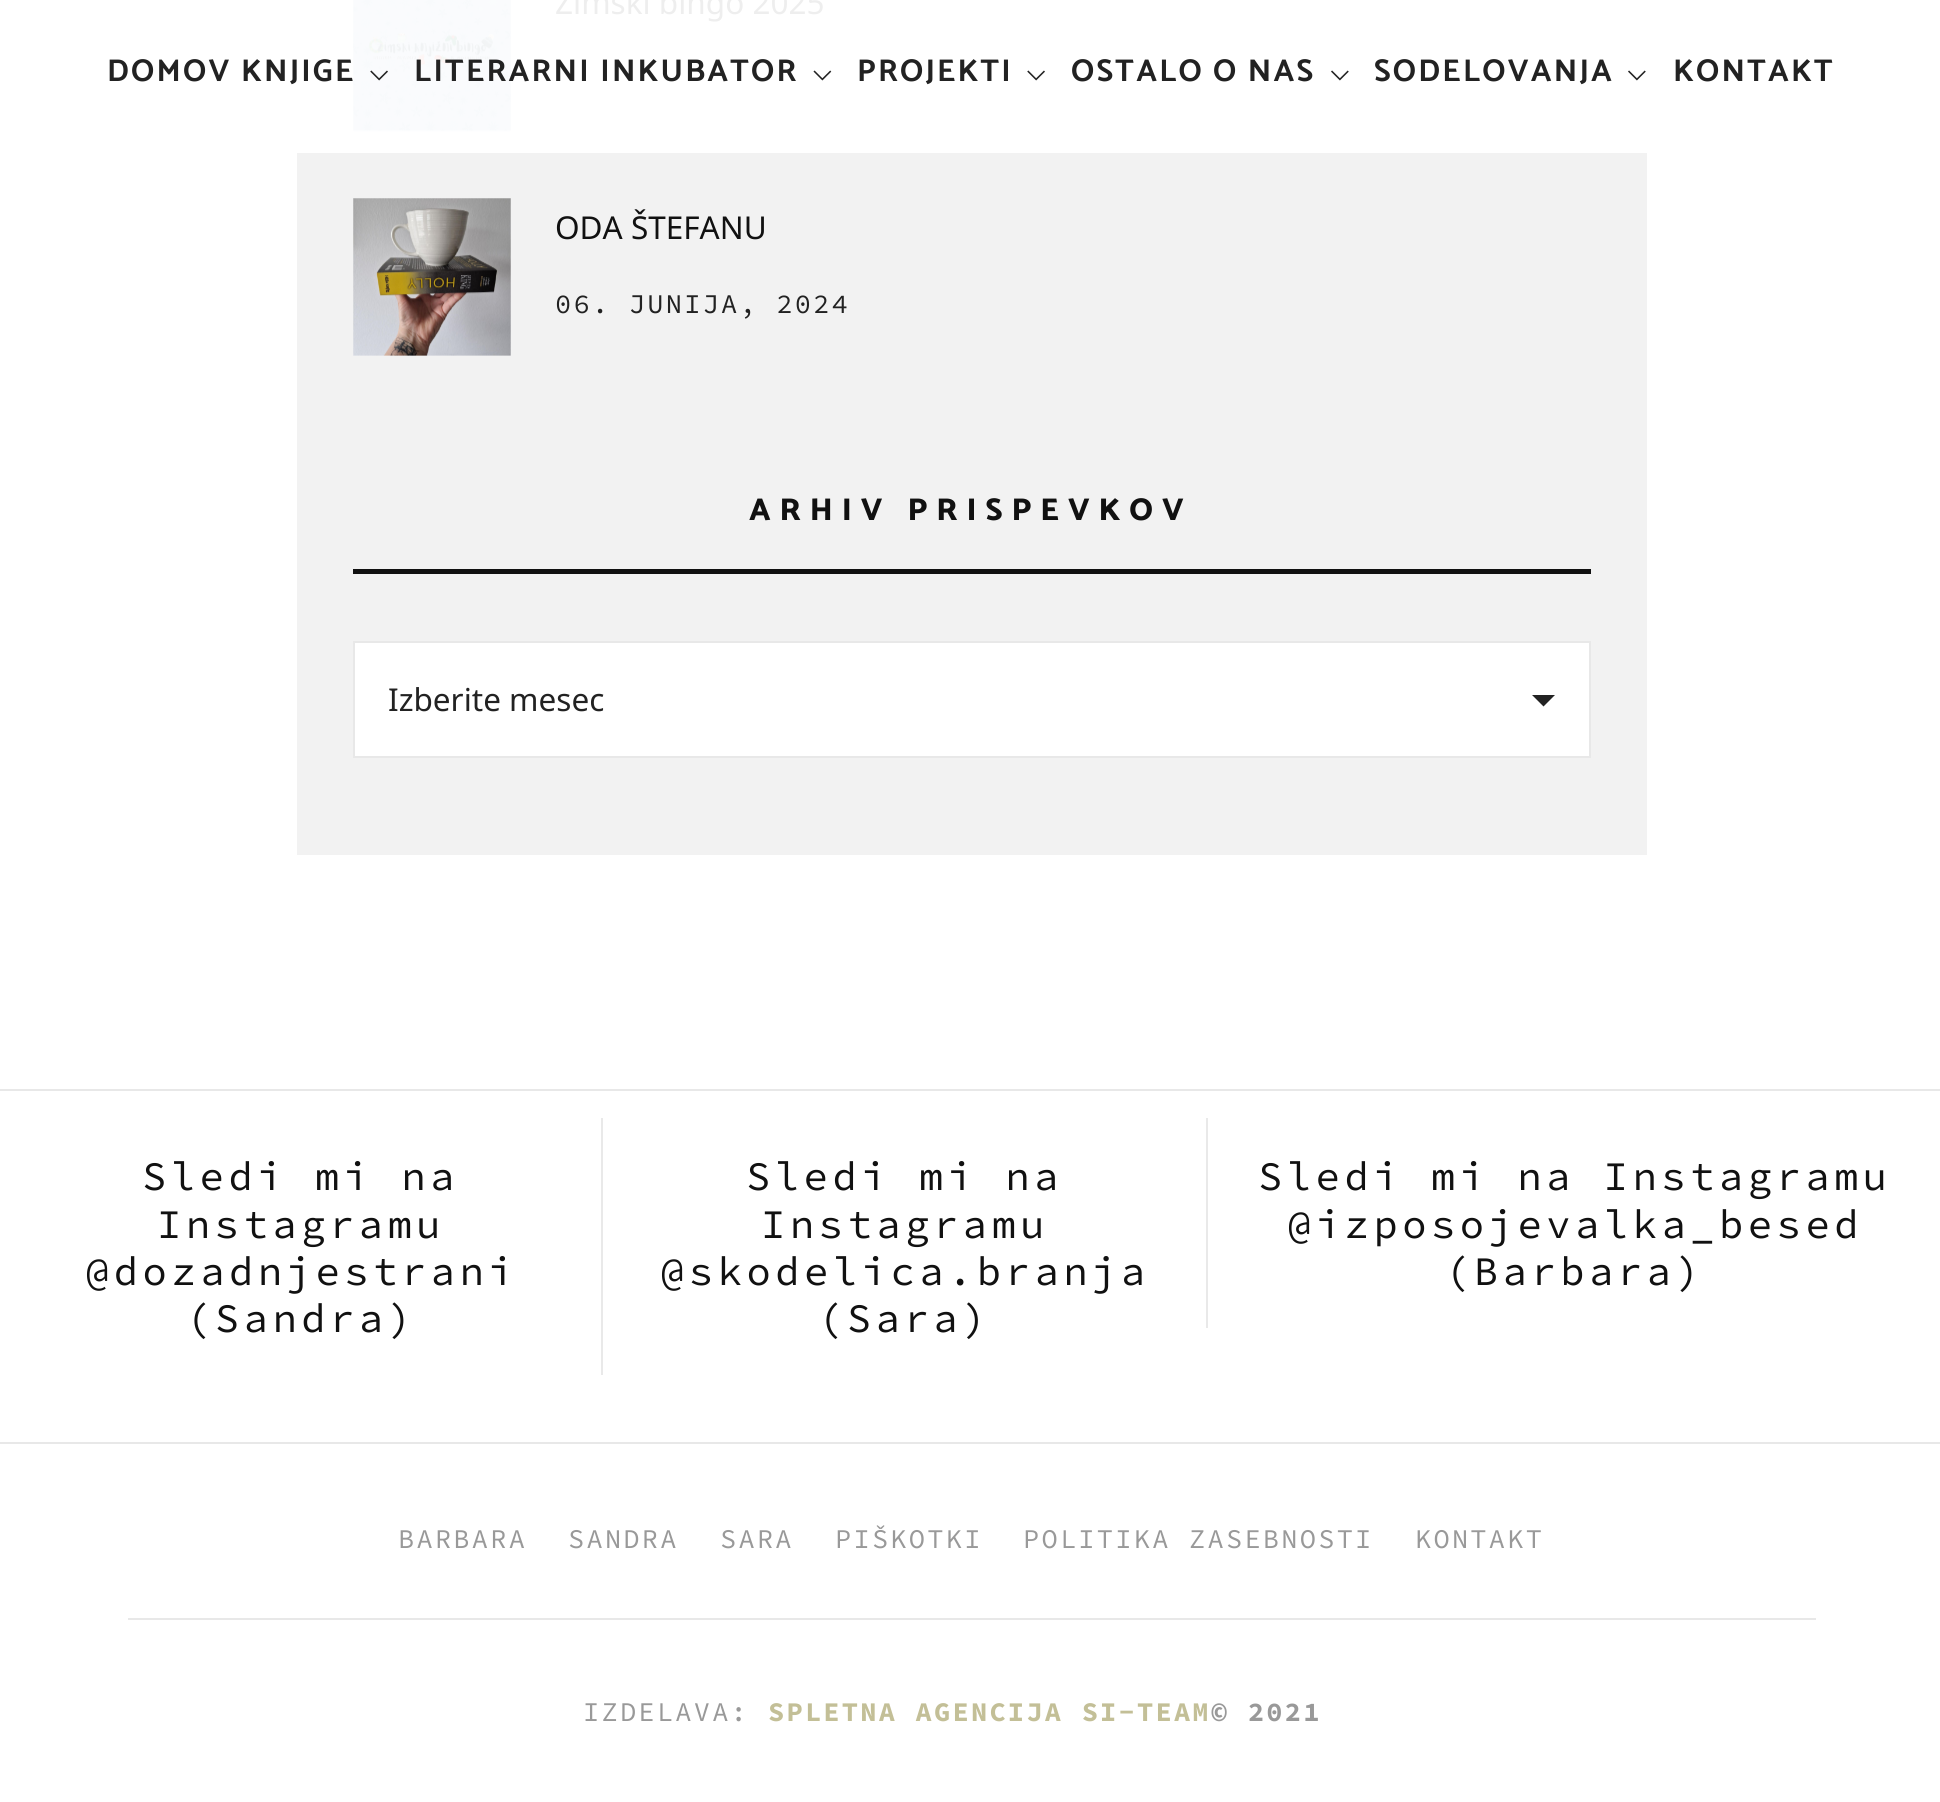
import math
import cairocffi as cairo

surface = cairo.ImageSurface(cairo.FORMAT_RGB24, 1940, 1802)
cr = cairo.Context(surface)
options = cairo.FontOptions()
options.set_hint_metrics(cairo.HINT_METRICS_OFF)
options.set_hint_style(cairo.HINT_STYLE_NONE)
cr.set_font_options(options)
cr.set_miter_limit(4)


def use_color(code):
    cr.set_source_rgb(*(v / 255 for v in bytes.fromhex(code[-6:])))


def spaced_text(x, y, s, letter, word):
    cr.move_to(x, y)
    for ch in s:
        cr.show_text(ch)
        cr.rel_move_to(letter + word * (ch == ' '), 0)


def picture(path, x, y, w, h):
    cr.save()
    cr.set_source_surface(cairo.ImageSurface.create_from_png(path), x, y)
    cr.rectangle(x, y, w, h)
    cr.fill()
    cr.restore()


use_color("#ffffff")
cr.paint()
use_color("#f2f2f2")
cr.rectangle(297, 153, 1350, 702)
cr.fill()
picture("img1.png", 353, 0, 158, 132)
cr.select_font_face("Noto Sans")
cr.set_font_size(31.5)
use_color("#eeeeee")
cr.move_to(555, 14)
cr.show_text("Zimski bingo 2025")
picture("img2.png", 353, 198, 158, 158)
use_color("#111111")
cr.move_to(555, 239)
cr.show_text("ODA ŠTEFANU")
cr.select_font_face("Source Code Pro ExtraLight")
cr.set_font_size(27)
use_color("#222222")
spaced_text(555, 313, "06. JUNIJA, 2024", 2.25, 0)
use_color("#111111")
cr.rectangle(353, 569, 1238, 5)
cr.fill()
cr.select_font_face("Catamaran ExtraBold")
cr.set_font_size(31.5)
spaced_text(749, 520, "ARHIV PRISPEVKOV", 9, 0)
use_color("#ffffff")
cr.rectangle(354, 642, 1236, 115)
cr.fill_preserve()
use_color("#e8e8e8")
cr.stroke()
cr.select_font_face("Noto Sans")
use_color("#222222")
cr.move_to(388, 711)
cr.show_text("Izberite mesec")
cr.new_path()
cr.move_to(1532, 695)
cr.line_to(1555, 695)
cr.line_to(1543.5, 706.5)
cr.close_path()
cr.fill()
cr.select_font_face("Catamaran", cairo.FONT_SLANT_NORMAL, cairo.FONT_WEIGHT_BOLD)
spaced_text(107, 81, "DOMOV", 2.25, 0)
spaced_text(241, 81, "KNJIGE", 2.25, 0)
picture("img3.png", 370, 70, 18, 11)
spaced_text(414, 81, "LITERARNI INKUBATOR", 2.25, 0)
picture("img4.png", 813, 70, 19, 11)
spaced_text(857, 81, "PROJEKTI", 2.25, 0)
picture("img5.png", 1027, 70, 18, 11)
spaced_text(1071, 81, "OSTALO", 2.25, 0)
spaced_text(1213, 81, "O NAS", 2.25, 0)
picture("img6.png", 1331, 70, 18, 11)
spaced_text(1374, 81, "SODELOVANJA", 2.25, 0)
picture("img6.png", 1628, 70, 18, 11)
spaced_text(1673, 81, "KONTAKT", 2.25, 0)
use_color("#e8e8e8")
cr.rectangle(0, 1089, 1940, 2)
cr.fill()
cr.rectangle(0, 1442, 1940, 2)
cr.fill()
cr.select_font_face("Source Code Pro ExtraLight")
cr.set_font_size(40.5)
use_color("#111111")
spaced_text(142, 1190, "Sledi mi na", 4.5, 0)
spaced_text(157, 1238, "Instagramu", 4.5, 0)
spaced_text(85, 1285, "@dozadnjestrani", 4.5, 0)
spaced_text(186, 1332, "(Sandra)", 4.5, 0)
use_color("#e9e9e9")
cr.rectangle(601, 1118, 2, 257)
cr.fill()
use_color("#111111")
spaced_text(746, 1190, "Sledi mi na", 4.5, 0)
spaced_text(761, 1238, "Instagramu", 4.5, 0)
spaced_text(660, 1285, "@skodelica.branja", 4.5, 0)
spaced_text(818, 1332, "(Sara)", 4.5, 0)
use_color("#e9e9e9")
cr.rectangle(1206, 1118, 2, 210)
cr.fill()
use_color("#111111")
spaced_text(1258, 1190, "Sledi mi na Instagramu", 4.5, 0)
spaced_text(1287, 1238, "@izposojevalka_besed", 4.5, 0)
spaced_text(1445, 1285, "(Barbara)", 4.5, 0)
cr.set_font_size(27)
use_color("#999999")
spaced_text(398, 1548, "BARBARA", 2.25, 0)
spaced_text(568, 1548, "SANDRA", 2.25, 0)
spaced_text(720, 1548, "SARA", 2.25, 0)
spaced_text(835, 1548, "PIŠKOTKI", 2.25, 0)
spaced_text(1023, 1548, "POLITIKA ZASEBNOSTI", 2.25, 0)
spaced_text(1415, 1548, "KONTAKT", 2.25, 0)
use_color("#e8e8e8")
cr.rectangle(128, 1618, 1688, 2)
cr.fill()
use_color("#999999")
spaced_text(583, 1721, "IZDELAVA:", 2.25, 0)
cr.select_font_face("Source Code Pro ExtraLight", cairo.FONT_SLANT_NORMAL, cairo.FONT_WEIGHT_BOLD)
use_color("#c3bf97")
spaced_text(768, 1721, "SPLETNA AGENCIJA SI-TEAM", 2.25, 0)
use_color("#999999")
spaced_text(1211, 1721, "© 2021", 2.25, 0)
surface.write_to_png("result.png")
